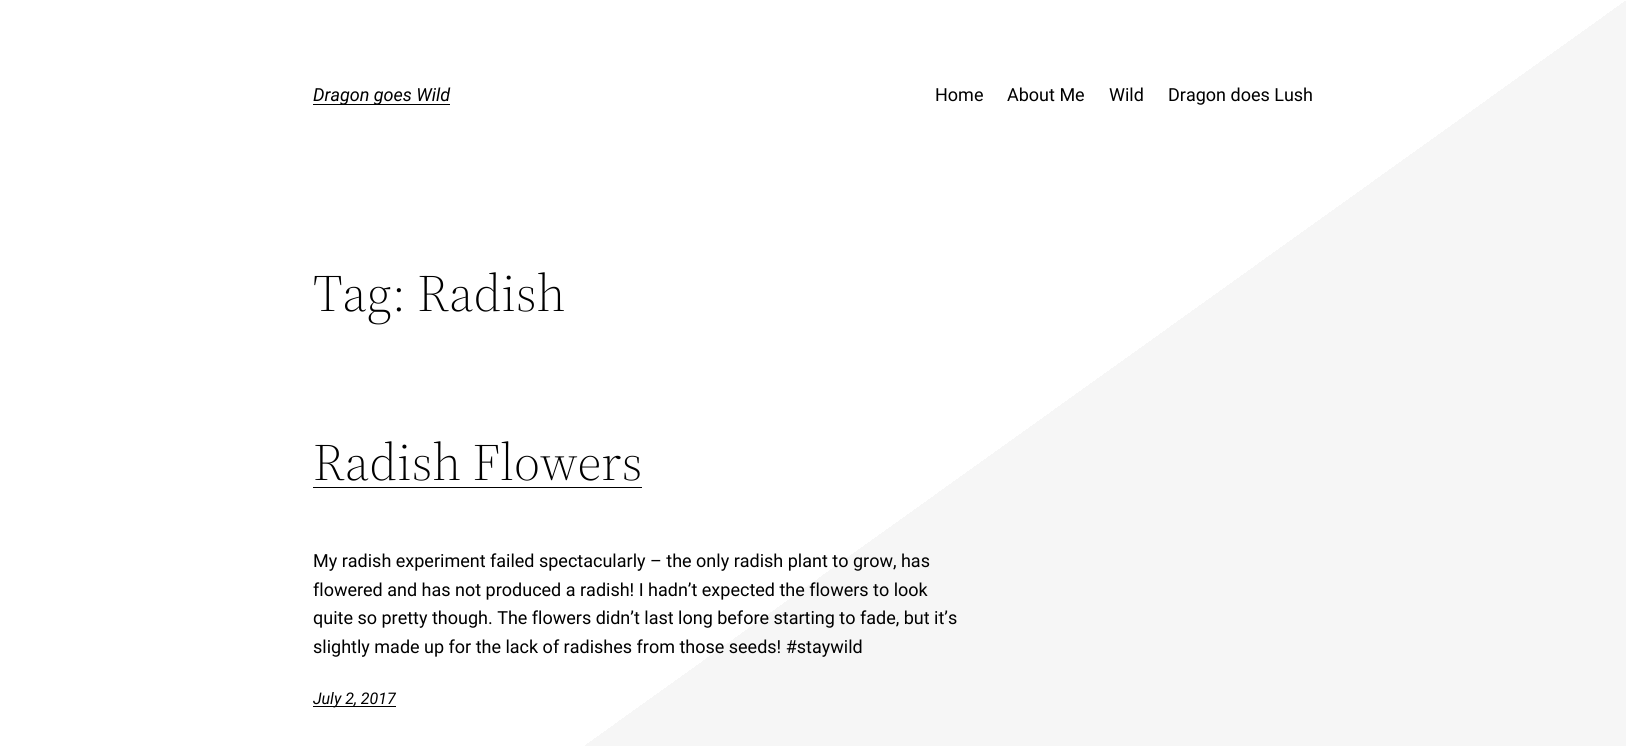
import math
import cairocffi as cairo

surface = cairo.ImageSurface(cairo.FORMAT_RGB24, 1626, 746)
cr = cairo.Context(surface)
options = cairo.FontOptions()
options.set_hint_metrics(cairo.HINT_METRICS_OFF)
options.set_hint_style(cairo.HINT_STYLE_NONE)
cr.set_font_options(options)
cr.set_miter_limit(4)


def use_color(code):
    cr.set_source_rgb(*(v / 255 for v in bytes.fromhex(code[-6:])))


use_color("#ffffff")
cr.paint()
gradient = cairo.LinearGradient(262, -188, 1364, 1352)
gradient.add_color_stop_rgba(0.5, 1, 1, 1, 1)
gradient.add_color_stop_rgba(0.5, 0.965, 0.965, 0.965, 1)
cr.set_source(gradient)
cr.rectangle(585, 1, 1041, 745)
cr.fill()
use_color("#000000")
cr.rectangle(313, 104, 137, 1)
cr.fill()
cr.select_font_face("Roboto", cairo.FONT_SLANT_ITALIC)
cr.set_font_size(18)
cr.move_to(313, 101)
cr.show_text("Dragon goes Wild")
cr.select_font_face("Roboto")
cr.move_to(935, 101)
cr.show_text("Home")
cr.move_to(1007, 101)
cr.show_text("About Me")
cr.move_to(1109, 101)
cr.show_text("Wild")
cr.move_to(1168, 101)
cr.show_text("Dragon does Lush")
cr.select_font_face("Source Serif 4 Light")
cr.set_font_size(52)
cr.move_to(313, 311)
cr.show_text("Tag: Radish")
cr.move_to(313, 480)
cr.show_text("Radish Flowers")
cr.rectangle(313, 487, 329, 1)
cr.fill()
cr.select_font_face("Roboto")
cr.set_font_size(18)
cr.move_to(313, 567)
cr.show_text("My radish experiment failed spectacularly – the only radish plant to grow, has")
cr.move_to(313, 596)
cr.show_text("flowered and has not produced a radish! I hadn’t expected the flowers to look")
cr.move_to(313, 624)
cr.show_text("quite so pretty though. The flowers didn’t last long before starting to fade, but it’s")
cr.move_to(313, 653)
cr.show_text("slightly made up for the lack of radishes from those seeds! #staywild")
cr.rectangle(313, 706, 83, 1)
cr.fill()
cr.select_font_face("Roboto", cairo.FONT_SLANT_ITALIC)
cr.set_font_size(16)
cr.move_to(313, 704)
cr.show_text("July 2, 2017")
surface.write_to_png("result.png")
